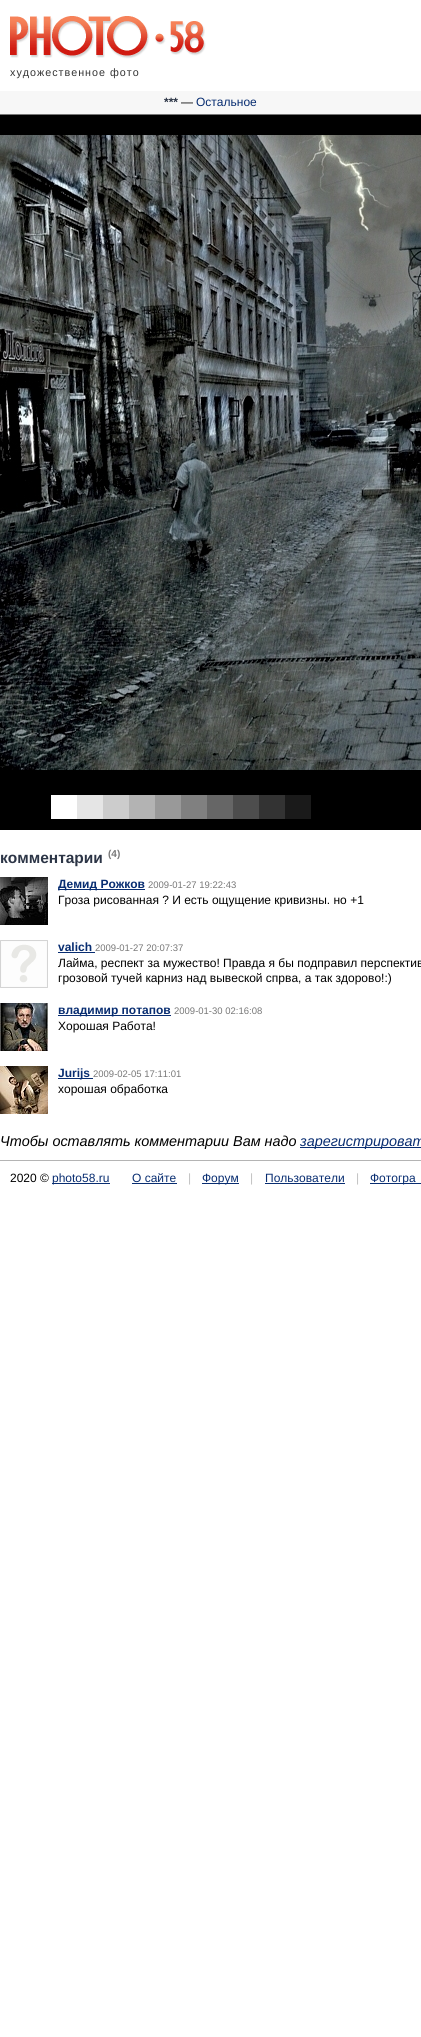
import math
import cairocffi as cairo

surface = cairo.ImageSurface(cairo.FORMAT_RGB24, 421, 2037)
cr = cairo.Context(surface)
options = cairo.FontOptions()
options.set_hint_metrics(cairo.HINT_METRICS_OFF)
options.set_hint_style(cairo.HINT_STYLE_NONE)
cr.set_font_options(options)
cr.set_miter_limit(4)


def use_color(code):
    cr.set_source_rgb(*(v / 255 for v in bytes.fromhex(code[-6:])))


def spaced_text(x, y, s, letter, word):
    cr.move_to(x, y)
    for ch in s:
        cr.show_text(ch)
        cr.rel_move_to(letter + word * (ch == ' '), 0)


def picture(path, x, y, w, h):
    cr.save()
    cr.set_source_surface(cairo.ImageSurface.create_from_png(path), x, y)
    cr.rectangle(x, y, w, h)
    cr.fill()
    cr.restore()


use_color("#ffffff")
cr.paint()
picture("img1.png", 10, 16, 196, 43)
cr.select_font_face("Liberation Sans")
cr.set_font_size(10.75)
use_color("#333333")
spaced_text(10, 76, "художественное фото", 1, 0)
use_color("#f7f7f7")
cr.rectangle(0, 91, 421, 23)
cr.fill()
use_color("#777777")
cr.rectangle(0, 114, 421, 1)
cr.fill()
cr.select_font_face("Liberation Sans", cairo.FONT_SLANT_NORMAL, cairo.FONT_WEIGHT_BOLD)
cr.set_font_size(12)
use_color("#2c3546")
cr.move_to(164, 106)
cr.show_text("***")
cr.select_font_face("Liberation Sans")
use_color("#000000")
cr.move_to(181, 106)
cr.show_text("—")
use_color("#082d71")
cr.move_to(196, 106)
cr.show_text("Остальное")
use_color("#000000")
cr.rectangle(0, 115, 421, 715)
cr.fill()
picture("img2.png", 0, 135, 421, 635)
use_color("#ffffff")
cr.rectangle(51, 795, 26, 24)
cr.fill()
use_color("#e5e5e5")
cr.rectangle(77, 795, 26, 24)
cr.fill()
use_color("#cccccc")
cr.rectangle(103, 795, 26, 24)
cr.fill()
use_color("#b3b3b3")
cr.rectangle(129, 795, 26, 24)
cr.fill()
use_color("#999999")
cr.rectangle(155, 795, 26, 24)
cr.fill()
use_color("#808080")
cr.rectangle(181, 795, 26, 24)
cr.fill()
use_color("#666666")
cr.rectangle(207, 795, 26, 24)
cr.fill()
use_color("#4d4d4d")
cr.rectangle(233, 795, 26, 24)
cr.fill()
use_color("#333333")
cr.rectangle(259, 795, 26, 24)
cr.fill()
use_color("#1a1a1a")
cr.rectangle(285, 795, 26, 24)
cr.fill()
cr.select_font_face("Liberation Sans", cairo.FONT_SLANT_NORMAL, cairo.FONT_WEIGHT_BOLD)
cr.set_font_size(15.5)
use_color("#2c3546")
cr.move_to(0, 863)
cr.show_text("комментарии")
cr.set_font_size(10)
use_color("#777777")
cr.move_to(108, 857)
cr.show_text("(4)")
picture("img3.png", 0, 877, 48, 48)
use_color("#082d71")
cr.rectangle(58, 889, 87, 1)
cr.fill()
cr.set_font_size(12)
cr.move_to(58, 888)
cr.show_text("Демид Рожков")
cr.select_font_face("Liberation Sans")
cr.set_font_size(9.5)
use_color("#777777")
cr.move_to(148, 888)
cr.show_text("2009-01-27 19:22:43")
cr.set_font_size(12)
use_color("#000000")
cr.move_to(58, 904)
cr.show_text("Гроза рисованная ? И есть ощущение кривизны. но +1")
picture("img4.png", 0, 940, 48, 48)
cr.select_font_face("Liberation Sans", cairo.FONT_SLANT_NORMAL, cairo.FONT_WEIGHT_BOLD)
use_color("#082d71")
cr.move_to(58, 951)
cr.show_text("valich")
cr.rectangle(58, 952, 37, 1)
cr.fill()
cr.select_font_face("Liberation Sans")
cr.set_font_size(9.5)
use_color("#777777")
cr.move_to(95, 951)
cr.show_text("2009-01-27 20:07:37")
cr.set_font_size(12)
use_color("#000000")
cr.move_to(58, 967)
cr.show_text("Лайма, респект за мужество! Правда я бы подправил перспектив")
cr.move_to(58, 982)
cr.show_text("грозовой тучей карниз над вывеской спрва, а так здорово!:)")
picture("img5.png", 0, 1003, 48, 48)
use_color("#082d71")
cr.rectangle(58, 1015, 113, 1)
cr.fill()
cr.select_font_face("Liberation Sans", cairo.FONT_SLANT_NORMAL, cairo.FONT_WEIGHT_BOLD)
cr.move_to(58, 1014)
cr.show_text("владимир потапов")
cr.select_font_face("Liberation Sans")
cr.set_font_size(9.5)
use_color("#777777")
cr.move_to(174, 1014)
cr.show_text("2009-01-30 02:16:08")
cr.set_font_size(12)
use_color("#000000")
cr.move_to(58, 1030)
cr.show_text("Хорошая Работа!")
picture("img6.png", 0, 1066, 48, 48)
use_color("#082d71")
cr.rectangle(58, 1078, 35, 1)
cr.fill()
cr.select_font_face("Liberation Sans", cairo.FONT_SLANT_NORMAL, cairo.FONT_WEIGHT_BOLD)
cr.move_to(58, 1077)
cr.show_text("Jurijs")
cr.select_font_face("Liberation Sans")
cr.set_font_size(9.5)
use_color("#777777")
cr.move_to(93, 1077)
cr.show_text("2009-02-05 17:11:01")
cr.set_font_size(12)
use_color("#000000")
cr.move_to(58, 1093)
cr.show_text("хорошая обработка")
cr.select_font_face("Liberation Sans", cairo.FONT_SLANT_ITALIC)
cr.set_font_size(14.4)
cr.move_to(0, 1146)
cr.show_text("Чтобы оставлять комментарии Вам надо")
use_color("#082d71")
cr.rectangle(300, 1147, 121, 1)
cr.fill()
cr.move_to(300, 1146)
cr.show_text("зарегистрироват")
use_color("#b4b4b4")
cr.rectangle(0, 1160, 421, 1)
cr.fill()
cr.select_font_face("Liberation Sans")
cr.set_font_size(12)
use_color("#000000")
cr.move_to(10, 1182)
cr.show_text("2020 ©")
use_color("#082d71")
cr.rectangle(52, 1183, 58, 1)
cr.fill()
cr.move_to(52, 1182)
cr.show_text("photo58.ru")
cr.move_to(132, 1182)
cr.show_text("О сайте")
cr.rectangle(132, 1183, 45, 1)
cr.fill()
use_color("#c0c0c0")
cr.move_to(188, 1182)
cr.show_text("|")
use_color("#082d71")
cr.rectangle(202, 1183, 37, 1)
cr.fill()
cr.move_to(202, 1182)
cr.show_text("Форум")
use_color("#c0c0c0")
cr.move_to(250, 1182)
cr.show_text("|")
use_color("#082d71")
cr.move_to(265, 1182)
cr.show_text("Пользователи")
cr.rectangle(265, 1183, 80, 1)
cr.fill()
use_color("#c0c0c0")
cr.move_to(356, 1182)
cr.show_text("|")
use_color("#082d71")
cr.rectangle(370, 1183, 51, 1)
cr.fill()
cr.move_to(370, 1182)
cr.show_text("Фотогра")
surface.write_to_png("result.png")
